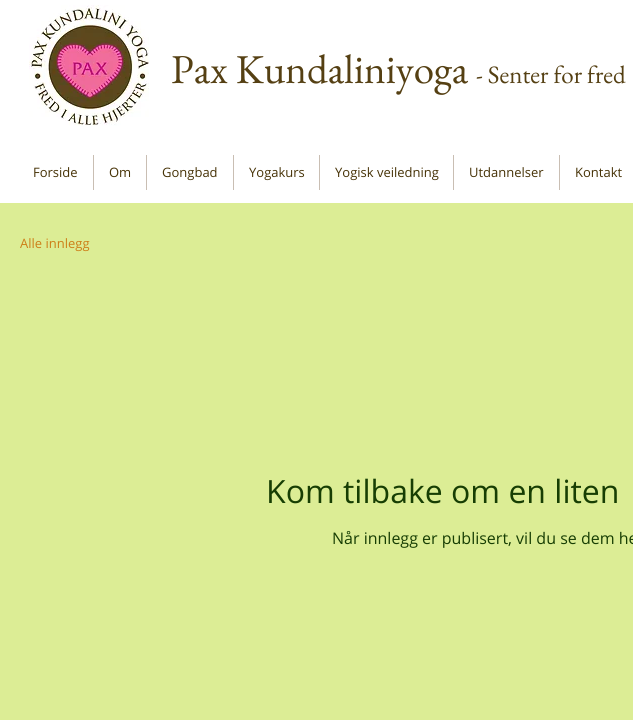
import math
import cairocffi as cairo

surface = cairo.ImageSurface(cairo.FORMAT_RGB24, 633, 720)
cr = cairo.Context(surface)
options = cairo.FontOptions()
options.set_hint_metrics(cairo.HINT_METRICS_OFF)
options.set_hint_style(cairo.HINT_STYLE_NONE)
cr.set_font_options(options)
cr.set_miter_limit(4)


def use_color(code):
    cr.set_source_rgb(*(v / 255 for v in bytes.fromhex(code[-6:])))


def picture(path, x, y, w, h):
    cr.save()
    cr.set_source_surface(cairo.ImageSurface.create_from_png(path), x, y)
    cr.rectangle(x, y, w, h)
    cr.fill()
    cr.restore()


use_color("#ffffff")
cr.paint()
picture("img1.png", 29, 5, 120, 121)
cr.select_font_face("EB Garamond")
cr.set_font_size(41)
use_color("#554013")
cr.move_to(171, 83)
cr.show_text("Pax Kundaliniyoga")
cr.set_font_size(25)
cr.move_to(476, 83)
cr.show_text("- Senter for fred")
cr.select_font_face("Open Sans")
cr.set_font_size(13)
use_color("#463206")
cr.move_to(33, 177)
cr.show_text("Forside")
use_color("#c9beb3")
cr.rectangle(93, 155, 1, 35)
cr.fill()
use_color("#463206")
cr.move_to(109, 177)
cr.show_text("Om")
use_color("#c9beb3")
cr.rectangle(146, 155, 1, 35)
cr.fill()
use_color("#463206")
cr.move_to(162, 177)
cr.show_text("Gongbad")
use_color("#c9beb3")
cr.rectangle(233, 155, 1, 35)
cr.fill()
use_color("#463206")
cr.move_to(249, 177)
cr.show_text("Yogakurs")
use_color("#c9beb3")
cr.rectangle(319, 155, 1, 35)
cr.fill()
use_color("#463206")
cr.move_to(335, 177)
cr.show_text("Yogisk veiledning")
use_color("#c9beb3")
cr.rectangle(453, 155, 1, 35)
cr.fill()
use_color("#463206")
cr.move_to(469, 177)
cr.show_text("Utdannelser")
use_color("#c9beb3")
cr.rectangle(559, 155, 1, 35)
cr.fill()
use_color("#463206")
cr.move_to(575, 177)
cr.show_text("Kontakt")
use_color("#dced95")
cr.rectangle(0, 203, 633, 517)
cr.fill()
use_color("#cd7e17")
cr.move_to(20, 248)
cr.show_text("Alle innlegg")
cr.set_font_size(32)
use_color("#173e03")
cr.move_to(266, 503)
cr.show_text("Kom tilbake om en liten")
cr.set_font_size(16)
cr.move_to(332, 544)
cr.show_text("Når innlegg er publisert, vil du se dem he")
surface.write_to_png("result.png")
